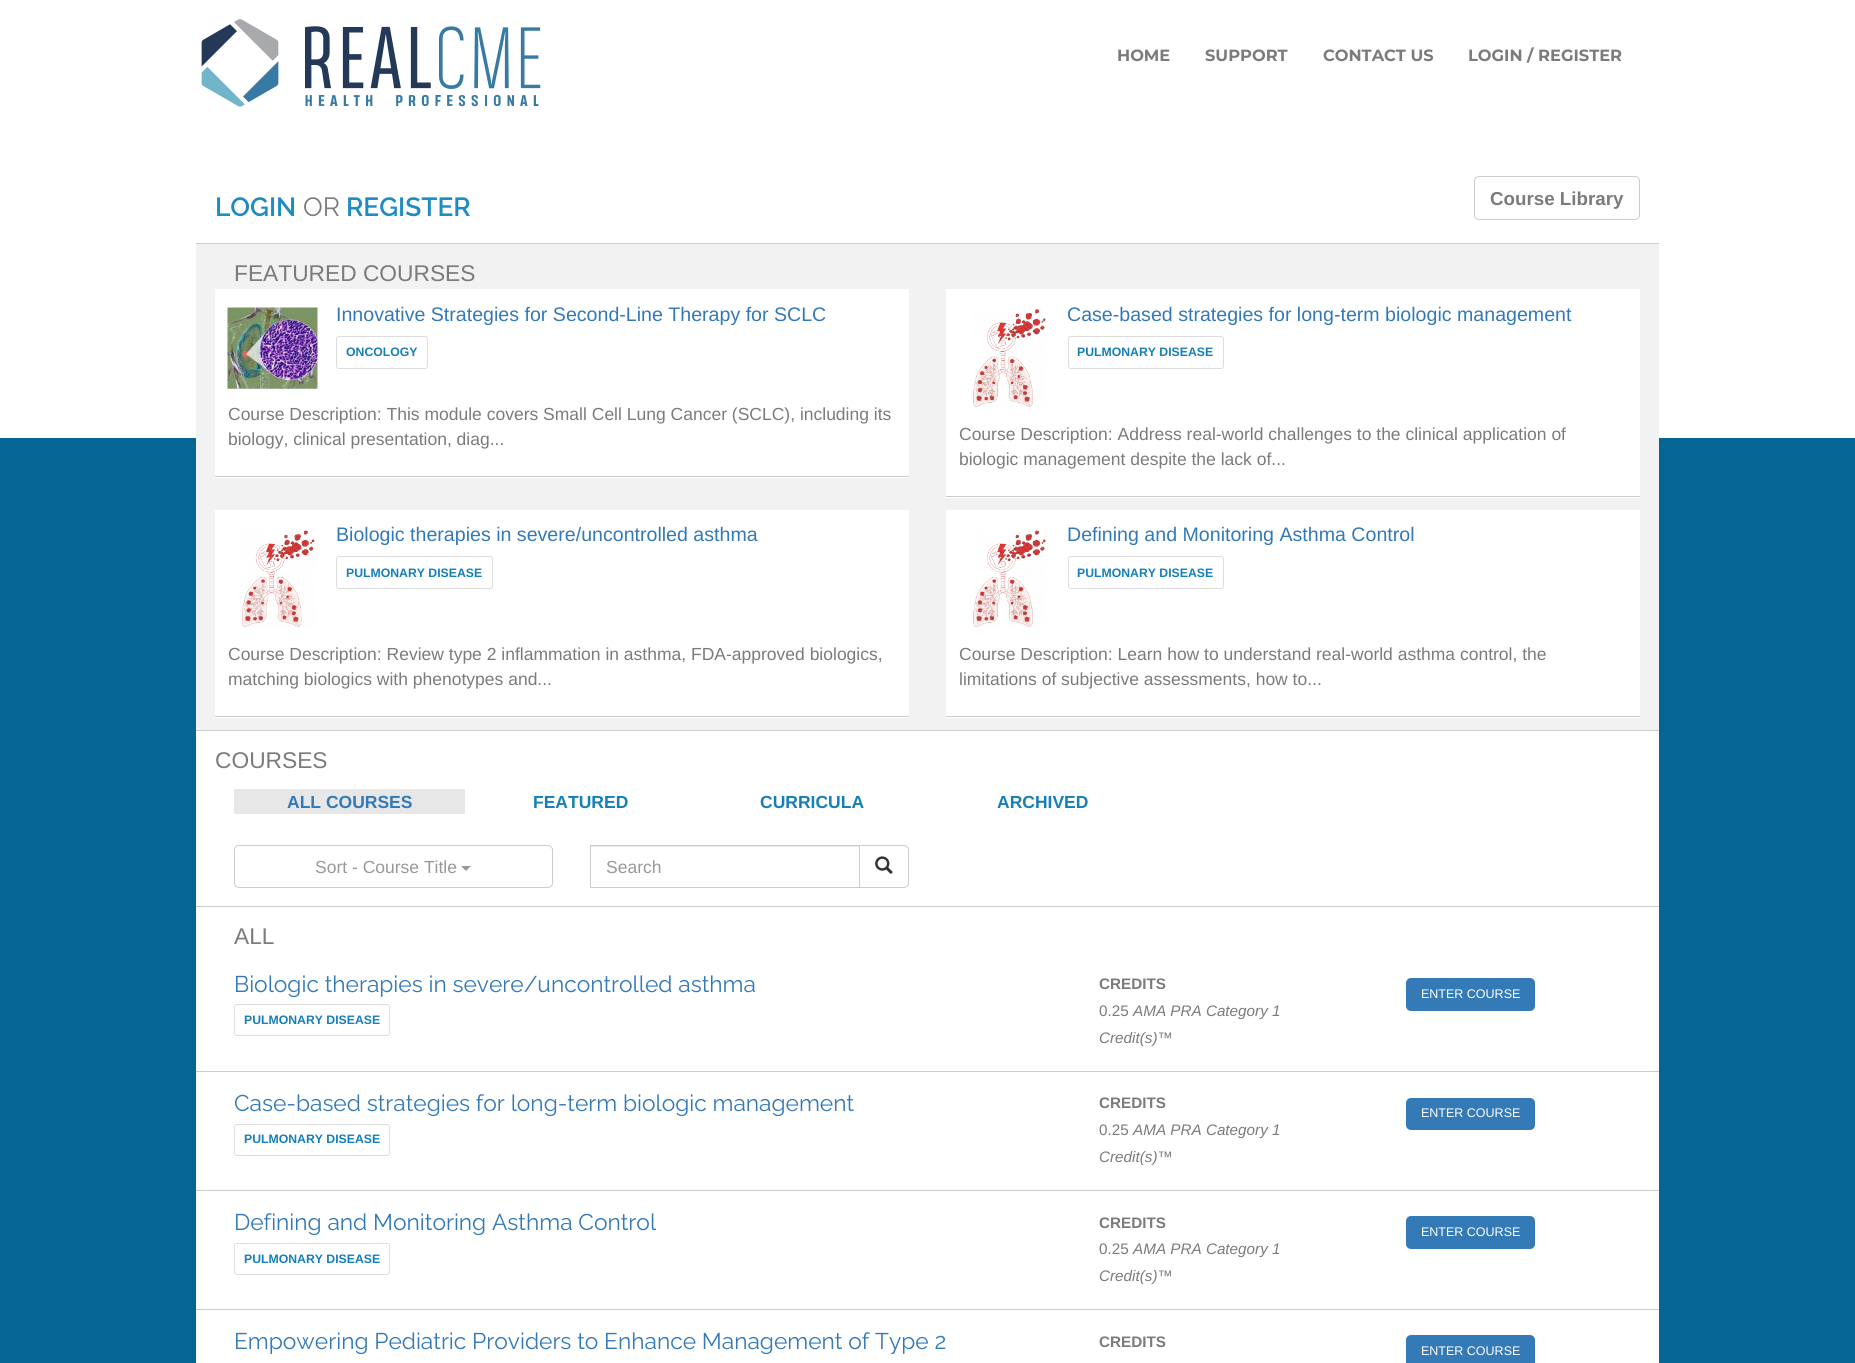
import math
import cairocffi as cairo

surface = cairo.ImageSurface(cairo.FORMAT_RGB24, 1855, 1363)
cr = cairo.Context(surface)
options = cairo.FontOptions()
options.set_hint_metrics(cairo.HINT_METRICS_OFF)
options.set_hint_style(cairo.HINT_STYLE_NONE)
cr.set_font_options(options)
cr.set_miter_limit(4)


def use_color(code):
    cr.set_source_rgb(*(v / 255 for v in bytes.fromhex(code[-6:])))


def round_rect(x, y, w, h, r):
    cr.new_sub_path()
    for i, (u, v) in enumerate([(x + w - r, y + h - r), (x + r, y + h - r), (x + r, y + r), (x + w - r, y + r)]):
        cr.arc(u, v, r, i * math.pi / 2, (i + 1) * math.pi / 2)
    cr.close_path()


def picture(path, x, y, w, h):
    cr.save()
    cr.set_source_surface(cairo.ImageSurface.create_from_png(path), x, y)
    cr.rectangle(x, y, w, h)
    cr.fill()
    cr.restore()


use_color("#056696")
cr.paint()
use_color("#ffffff")
cr.rectangle(0, 0, 1855, 438)
cr.fill()
round_rect(196, 0, 1463, 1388, 25)
cr.fill()
picture("img1.png", 201, 19, 340, 88)
cr.select_font_face("Montserrat", cairo.FONT_SLANT_NORMAL, cairo.FONT_WEIGHT_BOLD)
cr.set_font_size(16.25)
use_color("#7b7b7b")
cr.move_to(1117, 61)
cr.show_text("HOME")
cr.move_to(1205, 61)
cr.show_text("SUPPORT")
cr.move_to(1323, 61)
cr.show_text("CONTACT US")
cr.move_to(1468, 61)
cr.show_text("LOGIN / REGISTER")
cr.select_font_face("Raleway SemiBold")
cr.set_font_size(26.25)
use_color("#1e8bc3")
cr.move_to(215, 216)
cr.show_text("LOGIN")
cr.select_font_face("Raleway")
use_color("#7b7b7b")
cr.move_to(303, 216)
cr.show_text("OR")
cr.select_font_face("Raleway SemiBold")
use_color("#1e8bc3")
cr.move_to(346, 216)
cr.show_text("REGISTER")
round_rect(1474.5, 176.5, 165, 43, 4.5)
use_color("#cccccc")
cr.set_line_width(1)
cr.stroke()
cr.select_font_face("Liberation Sans", cairo.FONT_SLANT_NORMAL, cairo.FONT_WEIGHT_BOLD)
cr.set_font_size(18.75)
use_color("#7b7b7b")
cr.move_to(1490, 205)
cr.show_text("Course Library")
use_color("#cccccc")
cr.rectangle(196, 243, 1463, 1)
cr.fill()
cr.rectangle(196, 730, 1463, 1)
cr.fill()
use_color("#f2f2f2")
cr.rectangle(196, 244, 1463, 486)
cr.fill()
cr.select_font_face("Liberation Sans")
cr.set_font_size(22.75)
use_color("#7b7b7b")
cr.move_to(234, 281)
cr.show_text("FEATURED COURSES")
use_color("#ffffff")
cr.rectangle(215, 289, 694, 189)
cr.fill()
use_color("#cccccc")
cr.rectangle(215, 476, 694, 1)
cr.fill()
picture("img2.png", 227, 307, 91, 82)
cr.set_font_size(19.6)
use_color("#3379b7")
cr.move_to(336, 321)
cr.show_text("Innovative Strategies for Second-Line Therapy for SCLC")
round_rect(336.5, 336.5, 91, 32, 2.5)
use_color("#dddddd")
cr.stroke()
cr.select_font_face("Liberation Sans", cairo.FONT_SLANT_NORMAL, cairo.FONT_WEIGHT_BOLD)
cr.set_font_size(12.25)
use_color("#157fba")
cr.move_to(346, 356)
cr.show_text("ONCOLOGY")
cr.select_font_face("Liberation Sans")
cr.set_font_size(17.5)
use_color("#7b7b7b")
cr.move_to(228, 420)
cr.show_text("Course Description: This module covers Small Cell Lung Cancer (SCLC), including its")
cr.move_to(228, 445)
cr.show_text("biology, clinical presentation, diag...")
use_color("#ffffff")
cr.rectangle(946, 289, 694, 209)
cr.fill()
use_color("#cccccc")
cr.rectangle(946, 496, 694, 1)
cr.fill()
picture("img3.png", 973, 309, 73, 98)
cr.set_font_size(19.6)
use_color("#3379b7")
cr.move_to(1067, 321)
cr.show_text("Case-based strategies for long-term biologic management")
round_rect(1068.5, 336.5, 155, 32, 2.5)
use_color("#dddddd")
cr.stroke()
cr.select_font_face("Liberation Sans", cairo.FONT_SLANT_NORMAL, cairo.FONT_WEIGHT_BOLD)
cr.set_font_size(12.25)
use_color("#157fba")
cr.move_to(1077, 356)
cr.show_text("PULMONARY DISEASE")
cr.select_font_face("Liberation Sans")
cr.set_font_size(17.5)
use_color("#7b7b7b")
cr.move_to(959, 440)
cr.show_text("Course Description: Address real-world challenges to the clinical application of")
cr.move_to(959, 465)
cr.show_text("biologic management despite the lack of...")
use_color("#ffffff")
cr.rectangle(215, 510, 694, 208)
cr.fill()
use_color("#cccccc")
cr.rectangle(215, 716, 694, 1)
cr.fill()
picture("img4.png", 242, 530, 73, 97)
cr.set_font_size(19.6)
use_color("#3379b7")
cr.move_to(336, 541)
cr.show_text("Biologic therapies in severe/uncontrolled asthma")
round_rect(336.5, 556.5, 156, 32, 2.5)
use_color("#dddddd")
cr.stroke()
cr.select_font_face("Liberation Sans", cairo.FONT_SLANT_NORMAL, cairo.FONT_WEIGHT_BOLD)
cr.set_font_size(12.25)
use_color("#157fba")
cr.move_to(346, 577)
cr.show_text("PULMONARY DISEASE")
cr.select_font_face("Liberation Sans")
cr.set_font_size(17.5)
use_color("#7b7b7b")
cr.move_to(228, 660)
cr.show_text("Course Description: Review type 2 inflammation in asthma, FDA-approved biologics,")
cr.move_to(228, 685)
cr.show_text("matching biologics with phenotypes and...")
use_color("#ffffff")
cr.rectangle(946, 510, 694, 208)
cr.fill()
use_color("#cccccc")
cr.rectangle(946, 716, 694, 1)
cr.fill()
picture("img5.png", 973, 530, 73, 97)
cr.set_font_size(19.6)
use_color("#3379b7")
cr.move_to(1067, 541)
cr.show_text("Defining and Monitoring Asthma Control")
round_rect(1068.5, 556.5, 155, 32, 2.5)
use_color("#dddddd")
cr.stroke()
cr.select_font_face("Liberation Sans", cairo.FONT_SLANT_NORMAL, cairo.FONT_WEIGHT_BOLD)
cr.set_font_size(12.25)
use_color("#157fba")
cr.move_to(1077, 577)
cr.show_text("PULMONARY DISEASE")
cr.select_font_face("Liberation Sans")
cr.set_font_size(17.5)
use_color("#7b7b7b")
cr.move_to(959, 660)
cr.show_text("Course Description: Learn how to understand real-world asthma control, the")
cr.move_to(959, 685)
cr.show_text("limitations of subjective assessments, how to...")
cr.set_font_size(22.75)
cr.move_to(215, 768)
cr.show_text("COURSES")
use_color("#cccccc")
cr.rectangle(196, 906, 1463, 1)
cr.fill()
use_color("#e8e7e8")
cr.rectangle(234, 789, 231, 25)
cr.fill()
cr.select_font_face("Liberation Sans", cairo.FONT_SLANT_NORMAL, cairo.FONT_WEIGHT_BOLD)
cr.set_font_size(17.5)
use_color("#3379b7")
cr.move_to(287, 808)
cr.show_text("ALL COURSES")
use_color("#157fba")
cr.move_to(533, 808)
cr.show_text("FEATURED")
cr.move_to(760, 808)
cr.show_text("CURRICULA")
cr.move_to(997, 808)
cr.show_text("ARCHIVED")
round_rect(234.5, 845.5, 318, 42, 4.5)
use_color("#cccccc")
cr.stroke()
cr.select_font_face("Liberation Sans")
use_color("#999999")
cr.move_to(315, 873)
cr.show_text("Sort - Course Title")
cr.new_path()
cr.move_to(461, 866)
cr.line_to(471, 866)
cr.line_to(466, 871)
cr.close_path()
cr.fill()
use_color("#ececec")
cr.rectangle(591, 846, 268, 1)
cr.fill()
cr.rectangle(590.5, 845.5, 269, 42)
use_color("#cccccc")
cr.stroke()
use_color("#999999")
cr.move_to(606, 873)
cr.show_text("Search")
use_color("#ffffff")
cr.new_path()
cr.move_to(859.5, 845.5)
cr.line_to(904, 845.5)
cr.curve_to(906.5, 845.5, 908.5, 847.5, 908.5, 850)
cr.line_to(908.5, 883)
cr.curve_to(908.5, 885.5, 906.5, 887.5, 904, 887.5)
cr.line_to(859.5, 887.5)
cr.close_path()
cr.fill_preserve()
use_color("#cccccc")
cr.stroke()
picture("img6.png", 875, 856, 18, 18)
cr.set_font_size(22.75)
use_color("#7b7b7b")
cr.move_to(234, 944)
cr.show_text("ALL")
use_color("#cccccc")
cr.rectangle(196, 1071, 1463, 1)
cr.fill()
cr.select_font_face("Raleway")
use_color("#3379b7")
cr.move_to(234, 992)
cr.show_text("Biologic therapies in severe/uncontrolled asthma")
round_rect(234.5, 1004.5, 155, 31, 2.5)
use_color("#dddddd")
cr.stroke()
cr.select_font_face("Liberation Sans", cairo.FONT_SLANT_NORMAL, cairo.FONT_WEIGHT_BOLD)
cr.set_font_size(12.25)
use_color("#157fba")
cr.move_to(244, 1024)
cr.show_text("PULMONARY DISEASE")
cr.set_font_size(15.25)
use_color("#7b7b7b")
cr.move_to(1099, 989)
cr.show_text("CREDITS")
cr.select_font_face("Liberation Sans")
cr.move_to(1099, 1016)
cr.show_text("0.25")
cr.select_font_face("Liberation Sans", cairo.FONT_SLANT_ITALIC)
cr.move_to(1133, 1016)
cr.show_text("AMA PRA Category 1")
cr.move_to(1099, 1043)
cr.show_text("Credit(s)™")
use_color("#337ab7")
round_rect(1406, 978, 129, 33, 5)
cr.fill()
cr.select_font_face("Liberation Sans")
cr.set_font_size(12.5)
use_color("#ffffff")
cr.move_to(1421, 998)
cr.show_text("ENTER COURSE")
use_color("#cccccc")
cr.rectangle(196, 1190, 1463, 1)
cr.fill()
cr.select_font_face("Raleway")
cr.set_font_size(22.75)
use_color("#3379b7")
cr.move_to(234, 1111)
cr.show_text("Case-based strategies for long-term biologic management")
round_rect(234.5, 1124.5, 155, 31, 2.5)
use_color("#dddddd")
cr.stroke()
cr.select_font_face("Liberation Sans", cairo.FONT_SLANT_NORMAL, cairo.FONT_WEIGHT_BOLD)
cr.set_font_size(12.25)
use_color("#157fba")
cr.move_to(244, 1143)
cr.show_text("PULMONARY DISEASE")
cr.set_font_size(15.25)
use_color("#7b7b7b")
cr.move_to(1099, 1108)
cr.show_text("CREDITS")
cr.select_font_face("Liberation Sans")
cr.move_to(1099, 1135)
cr.show_text("0.25")
cr.select_font_face("Liberation Sans", cairo.FONT_SLANT_ITALIC)
cr.move_to(1133, 1135)
cr.show_text("AMA PRA Category 1")
cr.move_to(1099, 1162)
cr.show_text("Credit(s)™")
use_color("#337ab7")
round_rect(1406, 1098, 129, 32, 5)
cr.fill()
cr.select_font_face("Liberation Sans")
cr.set_font_size(12.5)
use_color("#ffffff")
cr.move_to(1421, 1117)
cr.show_text("ENTER COURSE")
use_color("#cccccc")
cr.rectangle(196, 1309, 1463, 1)
cr.fill()
cr.select_font_face("Raleway")
cr.set_font_size(22.75)
use_color("#3379b7")
cr.move_to(234, 1230)
cr.show_text("Defining and Monitoring Asthma Control")
round_rect(234.5, 1243.5, 155, 31, 2.5)
use_color("#dddddd")
cr.stroke()
cr.select_font_face("Liberation Sans", cairo.FONT_SLANT_NORMAL, cairo.FONT_WEIGHT_BOLD)
cr.set_font_size(12.25)
use_color("#157fba")
cr.move_to(244, 1263)
cr.show_text("PULMONARY DISEASE")
cr.set_font_size(15.25)
use_color("#7b7b7b")
cr.move_to(1099, 1228)
cr.show_text("CREDITS")
cr.select_font_face("Liberation Sans")
cr.move_to(1099, 1254)
cr.show_text("0.25")
cr.select_font_face("Liberation Sans", cairo.FONT_SLANT_ITALIC)
cr.move_to(1133, 1254)
cr.show_text("AMA PRA Category 1")
cr.move_to(1099, 1281)
cr.show_text("Credit(s)™")
use_color("#337ab7")
round_rect(1406, 1216, 129, 33, 5)
cr.fill()
cr.select_font_face("Liberation Sans")
cr.set_font_size(12.5)
use_color("#ffffff")
cr.move_to(1421, 1236)
cr.show_text("ENTER COURSE")
cr.select_font_face("Raleway")
cr.set_font_size(22.75)
use_color("#3379b7")
cr.move_to(234, 1349)
cr.show_text("Empowering Pediatric Providers to Enhance Management of Type 2")
cr.select_font_face("Liberation Sans", cairo.FONT_SLANT_NORMAL, cairo.FONT_WEIGHT_BOLD)
cr.set_font_size(15.25)
use_color("#7b7b7b")
cr.move_to(1099, 1347)
cr.show_text("CREDITS")
use_color("#337ab7")
round_rect(1406, 1335, 129, 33, 5)
cr.fill()
cr.select_font_face("Liberation Sans")
cr.set_font_size(12.5)
use_color("#ffffff")
cr.move_to(1421, 1355)
cr.show_text("ENTER COURSE")
surface.write_to_png("result.png")
